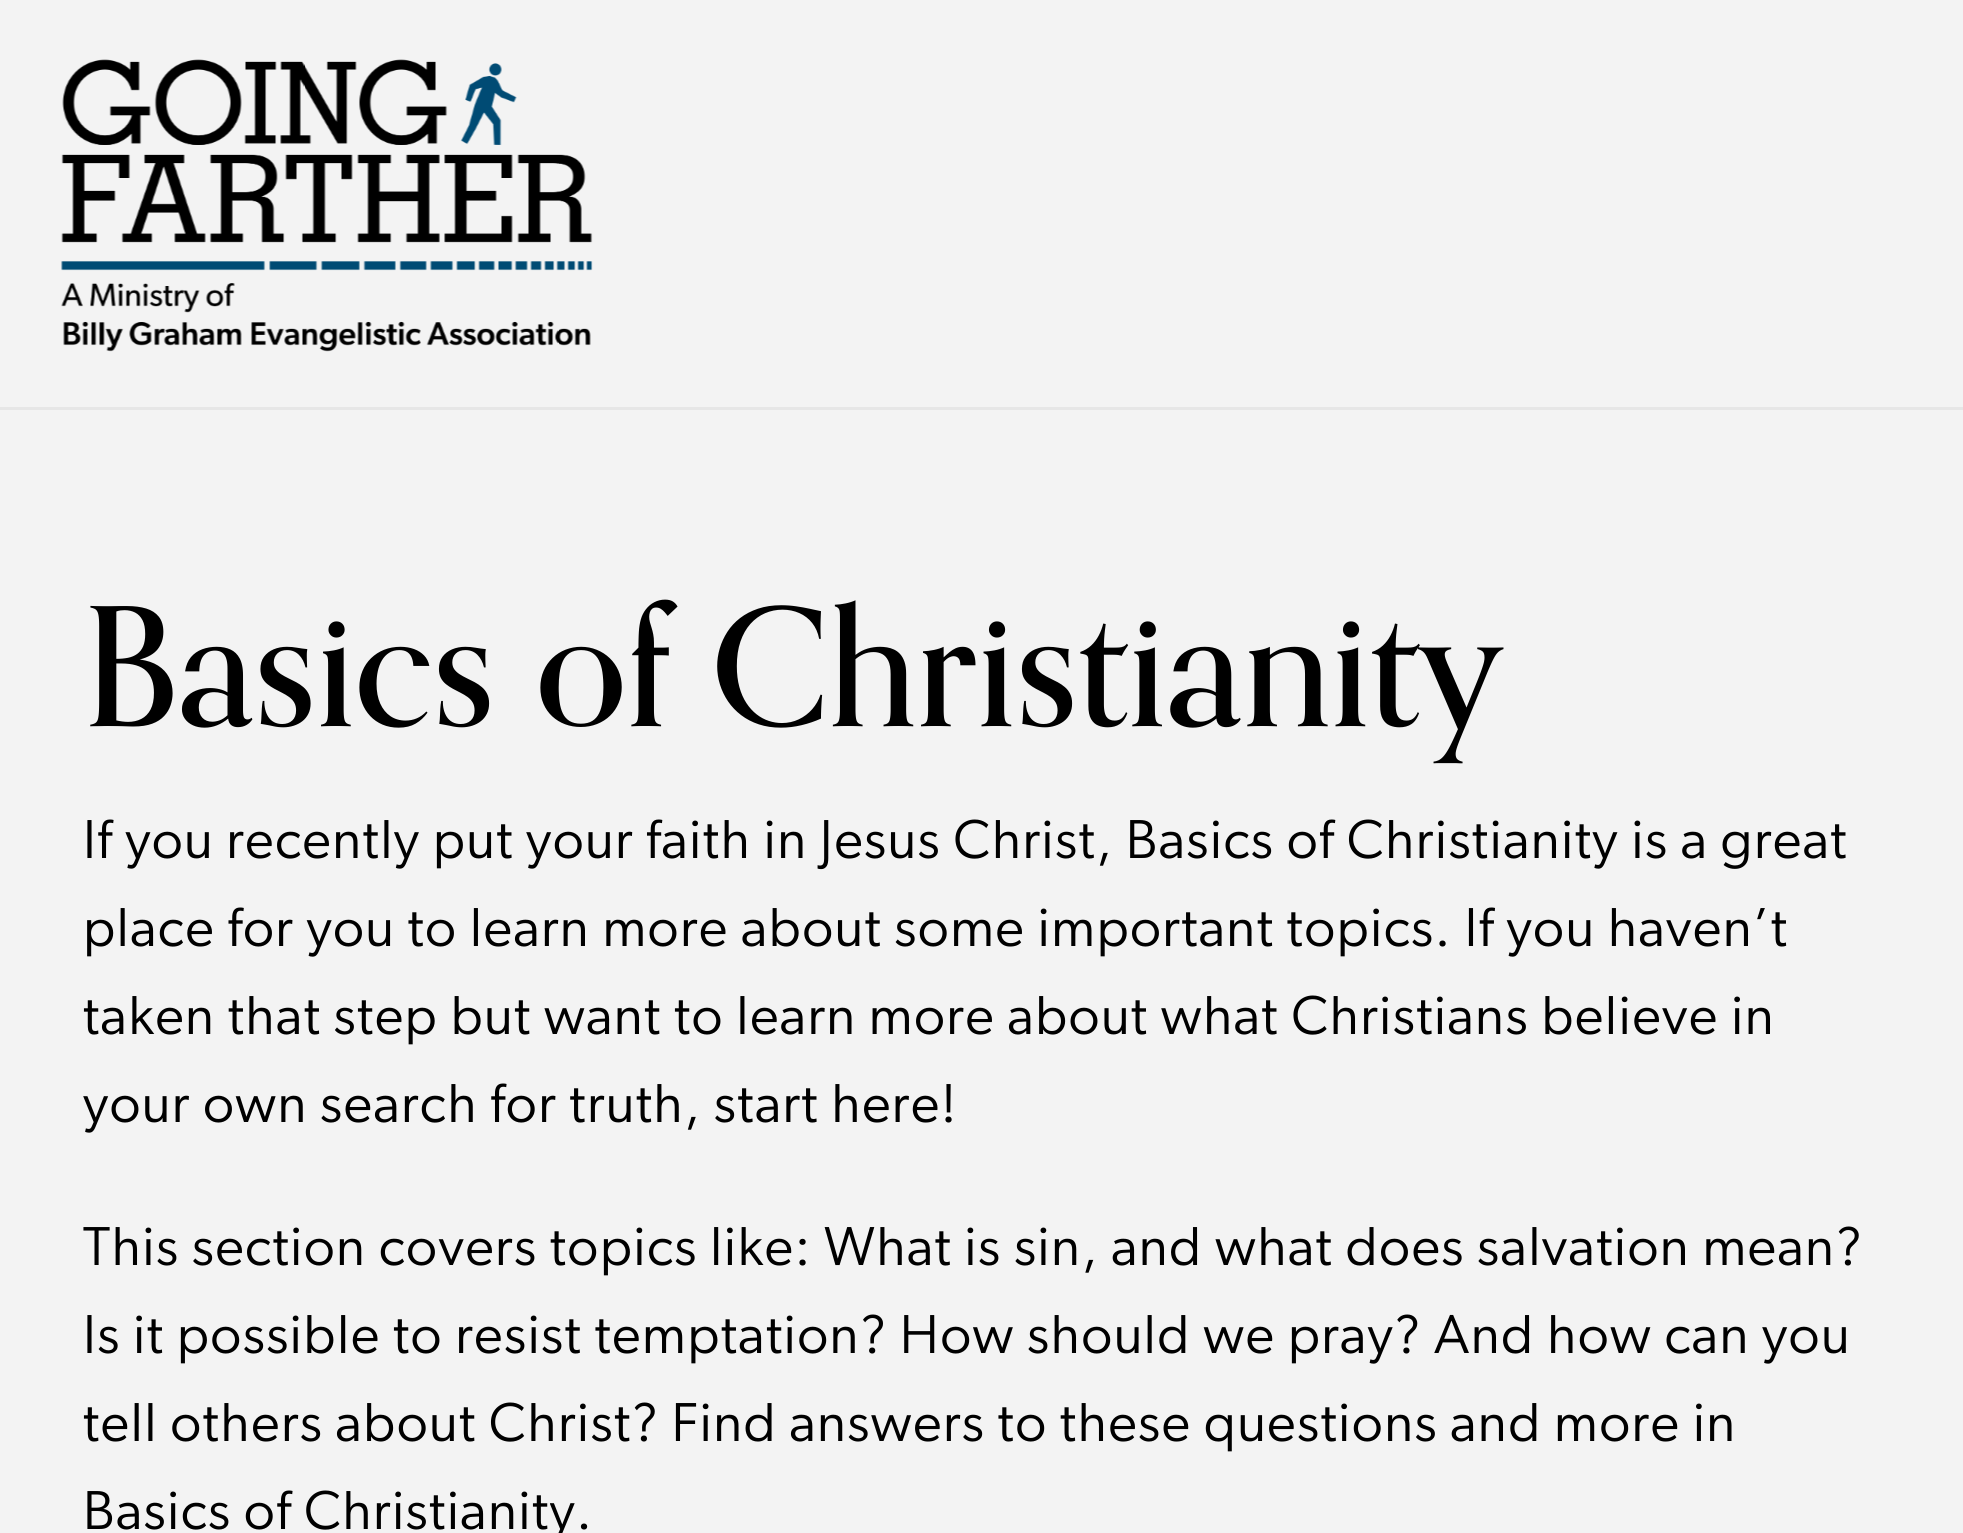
import math
import cairocffi as cairo

surface = cairo.ImageSurface(cairo.FORMAT_RGB24, 1963, 1533)
cr = cairo.Context(surface)
options = cairo.FontOptions()
options.set_hint_metrics(cairo.HINT_METRICS_OFF)
options.set_hint_style(cairo.HINT_STYLE_NONE)
cr.set_font_options(options)
cr.set_miter_limit(4)


def use_color(code):
    cr.set_source_rgb(*(v / 255 for v in bytes.fromhex(code[-6:])))


def spaced_text(x, y, s, letter, word):
    cr.move_to(x, y)
    for ch in s:
        cr.show_text(ch)
        cr.rel_move_to(letter + word * (ch == ' '), 0)


def picture(path, x, y, w, h):
    cr.save()
    cr.set_source_surface(cairo.ImageSurface.create_from_png(path), x, y)
    cr.rectangle(x, y, w, h)
    cr.fill()
    cr.restore()


use_color("#f3f3f3")
cr.paint()
use_color("#e6e6e6")
cr.rectangle(0, 407, 1963, 3)
cr.fill()
picture("img1.png", 61, 59, 532, 293)
cr.select_font_face("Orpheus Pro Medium")
cr.set_font_size(165)
use_color("#000000")
cr.move_to(83, 726)
cr.show_text("Basics of Christianity")
cr.select_font_face("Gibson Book")
cr.set_font_size(55)
spaced_text(83, 858, "If you recently put your faith in Jesus Christ, Basics of Christianity is a great", 1.38, 0)
spaced_text(83, 946, "place for you to learn more about some important topics. If you haven’t", 1.38, 0)
spaced_text(83, 1034, "taken that step but want to learn more about what Christians believe in", 1.38, 0)
spaced_text(83, 1122, "your own search for truth, start here!", 1.38, 0)
spaced_text(83, 1265, "This section covers topics like: What is sin, and what does salvation mean?", 1.38, 0)
spaced_text(83, 1353, "Is it possible to resist temptation? How should we pray? And how can you", 1.38, 0)
spaced_text(83, 1441, "tell others about Christ? Find answers to these questions and more in", 1.38, 0)
spaced_text(83, 1529, "Basics of Christianity.", 1.38, 0)
surface.write_to_png("result.png")
